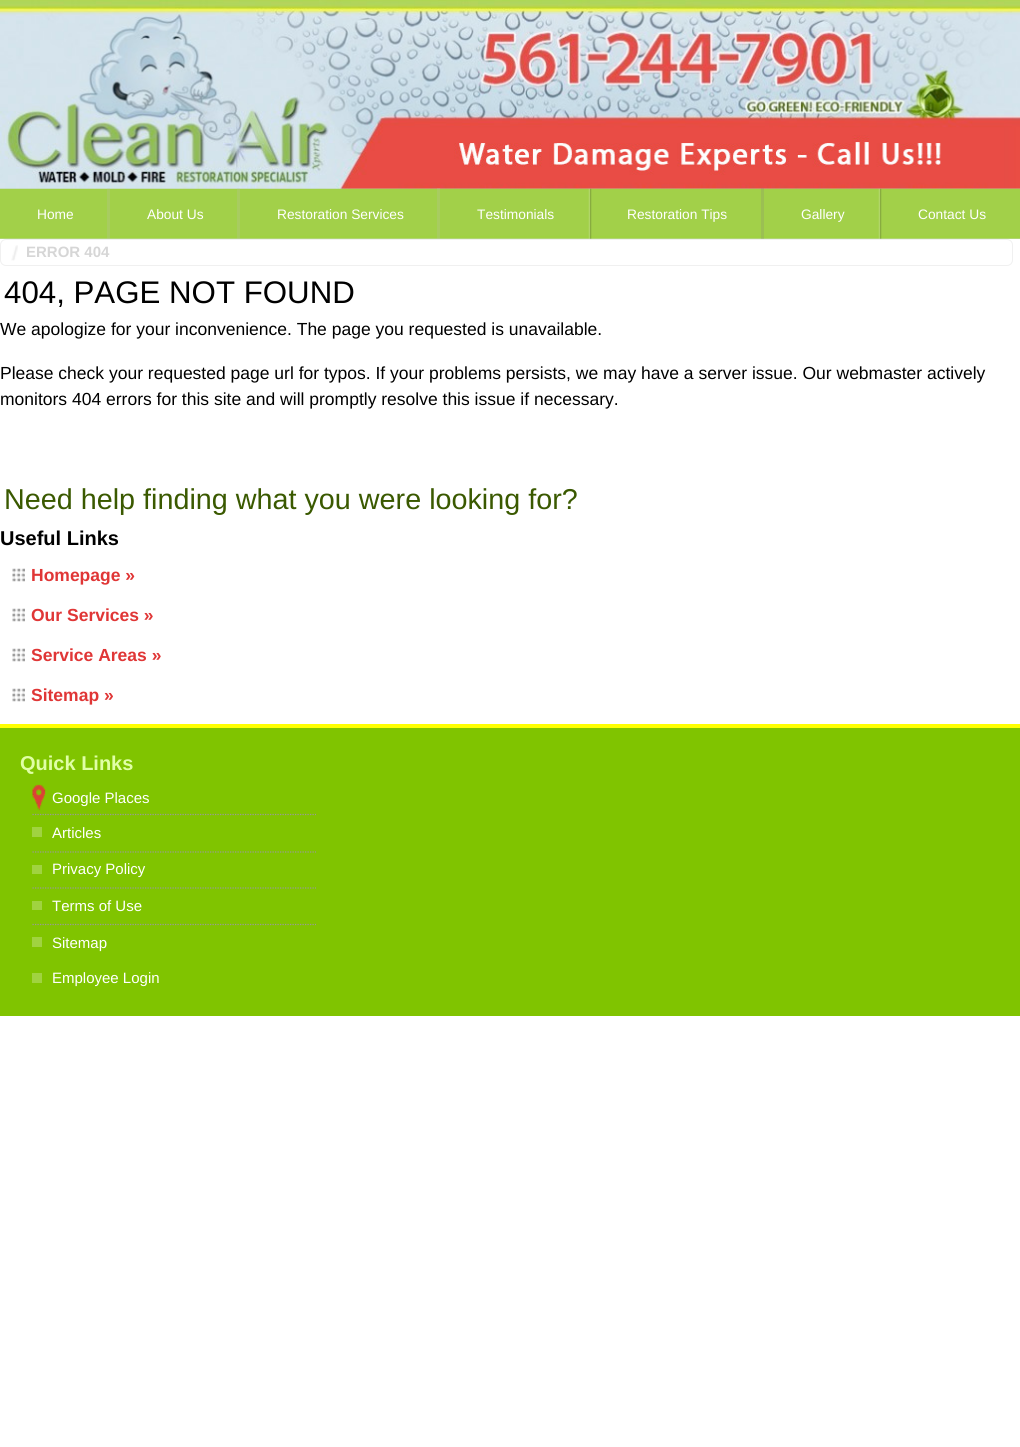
import math
import cairocffi as cairo

surface = cairo.ImageSurface(cairo.FORMAT_RGB24, 1020, 1447)
cr = cairo.Context(surface)
options = cairo.FontOptions()
options.set_hint_metrics(cairo.HINT_METRICS_OFF)
options.set_hint_style(cairo.HINT_STYLE_NONE)
cr.set_font_options(options)
cr.set_miter_limit(4)


def use_color(code):
    cr.set_source_rgb(*(v / 255 for v in bytes.fromhex(code[-6:])))


def round_rect(x, y, w, h, r):
    cr.new_sub_path()
    for i, (u, v) in enumerate([(x + w - r, y + h - r), (x + r, y + h - r), (x + r, y + r), (x + w - r, y + r)]):
        cr.arc(u, v, r, i * math.pi / 2, (i + 1) * math.pi / 2)
    cr.close_path()


def picture(path, x, y, w, h):
    cr.save()
    cr.set_source_surface(cairo.ImageSurface.create_from_png(path), x, y)
    cr.rectangle(x, y, w, h)
    cr.fill()
    cr.restore()


use_color("#ffffff")
cr.paint()
picture("img1.png", 0, 188, 1020, 51)
picture("img2.png", 0, 0, 1020, 189)
picture("img3.png", 0, 188, 1020, 51)
cr.set_source_rgba(0.745, 0.745, 0.745, 0.2)
cr.rectangle(107, 188, 3, 51)
cr.fill()
cr.select_font_face("Liberation Sans")
cr.set_font_size(13.75)
use_color("#ffffff")
cr.move_to(37, 219)
cr.show_text("Home")
cr.set_source_rgba(0.745, 0.745, 0.745, 0.2)
cr.rectangle(237, 188, 3, 51)
cr.fill()
use_color("#ffffff")
cr.move_to(147, 219)
cr.show_text("About Us")
cr.set_source_rgba(0.745, 0.745, 0.745, 0.2)
cr.rectangle(437, 188, 3, 51)
cr.fill()
use_color("#ffffff")
cr.move_to(277, 219)
cr.show_text("Restoration Services")
picture("img4.png", 588, 188, 4, 51)
cr.move_to(477, 219)
cr.show_text("Testimonials")
cr.set_source_rgba(0.49, 0.49, 0.49, 0.2)
cr.rectangle(761, 188, 3, 51)
cr.fill()
use_color("#ffffff")
cr.move_to(627, 219)
cr.show_text("Restoration Tips")
picture("img5.png", 878, 188, 4, 51)
cr.move_to(801, 219)
cr.show_text("Gallery")
cr.move_to(918, 219)
cr.show_text("Contact Us")
round_rect(0.5, 239.5, 1012, 26, 5.5)
use_color("#f0f0f0")
cr.set_line_width(1)
cr.stroke()
picture("img6.png", 11, 245, 7, 16)
cr.select_font_face("Liberation Sans", cairo.FONT_SLANT_NORMAL, cairo.FONT_WEIGHT_BOLD)
cr.set_font_size(15)
use_color("#d6d6d6")
cr.move_to(26, 257)
cr.show_text("ERROR 404")
cr.select_font_face("Liberation Sans")
cr.set_font_size(31.25)
use_color("#000000")
cr.move_to(4, 303)
cr.show_text("404, PAGE NOT FOUND")
cr.set_font_size(17.5)
cr.move_to(0, 335)
cr.show_text("We apologize for your inconvenience. The page you requested is unavailable.")
cr.move_to(0, 379)
cr.show_text("Please check your requested page url for typos. If your problems persists, we may have a server issue. Our webmaster actively")
cr.move_to(0, 405)
cr.show_text("monitors 404 errors for this site and will promptly resolve this issue if necessary.")
cr.set_font_size(28.75)
use_color("#3a5900")
cr.move_to(4, 509)
cr.show_text("Need help finding what you were looking for?")
cr.select_font_face("Liberation Sans", cairo.FONT_SLANT_NORMAL, cairo.FONT_WEIGHT_BOLD)
cr.set_font_size(20)
use_color("#000000")
cr.move_to(0, 545)
cr.show_text("Useful Links")
picture("img7.png", 12, 568, 13, 14)
cr.set_font_size(17.5)
use_color("#e03636")
cr.move_to(31, 581)
cr.show_text("Homepage »")
picture("img7.png", 12, 608, 13, 14)
cr.move_to(31, 621)
cr.show_text("Our Services »")
picture("img7.png", 12, 648, 13, 14)
cr.move_to(31, 661)
cr.show_text("Service Areas »")
picture("img7.png", 12, 688, 13, 14)
cr.move_to(31, 701)
cr.show_text("Sitemap »")
use_color("#80c400")
cr.rectangle(0, 728, 1020, 288)
cr.fill()
use_color("#ffff01")
cr.rectangle(0, 724, 1020, 4)
cr.fill()
cr.set_font_size(20)
use_color("#e0ffa6")
cr.move_to(20, 770)
cr.show_text("Quick Links")
picture("img8.png", 32, 784, 14, 27)
cr.new_path()
cr.move_to(32.5, 814.5)
cr.line_to(316, 814.5)
use_color("#999999")
cr.set_line_width(1.2)
cr.set_dash([1.25, 1.25])
cr.stroke()
cr.select_font_face("Liberation Sans")
cr.set_font_size(15)
use_color("#ffffff")
cr.move_to(52, 803)
cr.show_text("Google Places")
use_color("#a0d340")
cr.rectangle(32, 827, 10, 10)
cr.fill()
cr.new_path()
cr.move_to(32.5, 852)
cr.line_to(316, 852)
use_color("#999999")
cr.stroke()
use_color("#ffffff")
cr.move_to(52, 838)
cr.show_text("Articles")
use_color("#a0d340")
cr.rectangle(32, 865, 10, 9)
cr.fill()
cr.new_path()
cr.move_to(32.5, 888)
cr.line_to(316, 888)
use_color("#999999")
cr.stroke()
use_color("#ffffff")
cr.move_to(52, 874)
cr.show_text("Privacy Policy")
use_color("#a0d340")
cr.rectangle(32, 901, 10, 9)
cr.fill()
cr.new_path()
cr.move_to(32.5, 924.5)
cr.line_to(316, 924.5)
use_color("#999999")
cr.stroke()
use_color("#ffffff")
cr.move_to(52, 911)
cr.show_text("Terms of Use")
use_color("#a0d340")
cr.rectangle(32, 937, 10, 10)
cr.fill()
use_color("#ffffff")
cr.move_to(52, 948)
cr.show_text("Sitemap")
use_color("#a0d340")
cr.rectangle(32, 973, 10, 10)
cr.fill()
use_color("#ffffff")
cr.move_to(52, 983)
cr.show_text("Employee Login")
surface.write_to_png("result.png")
